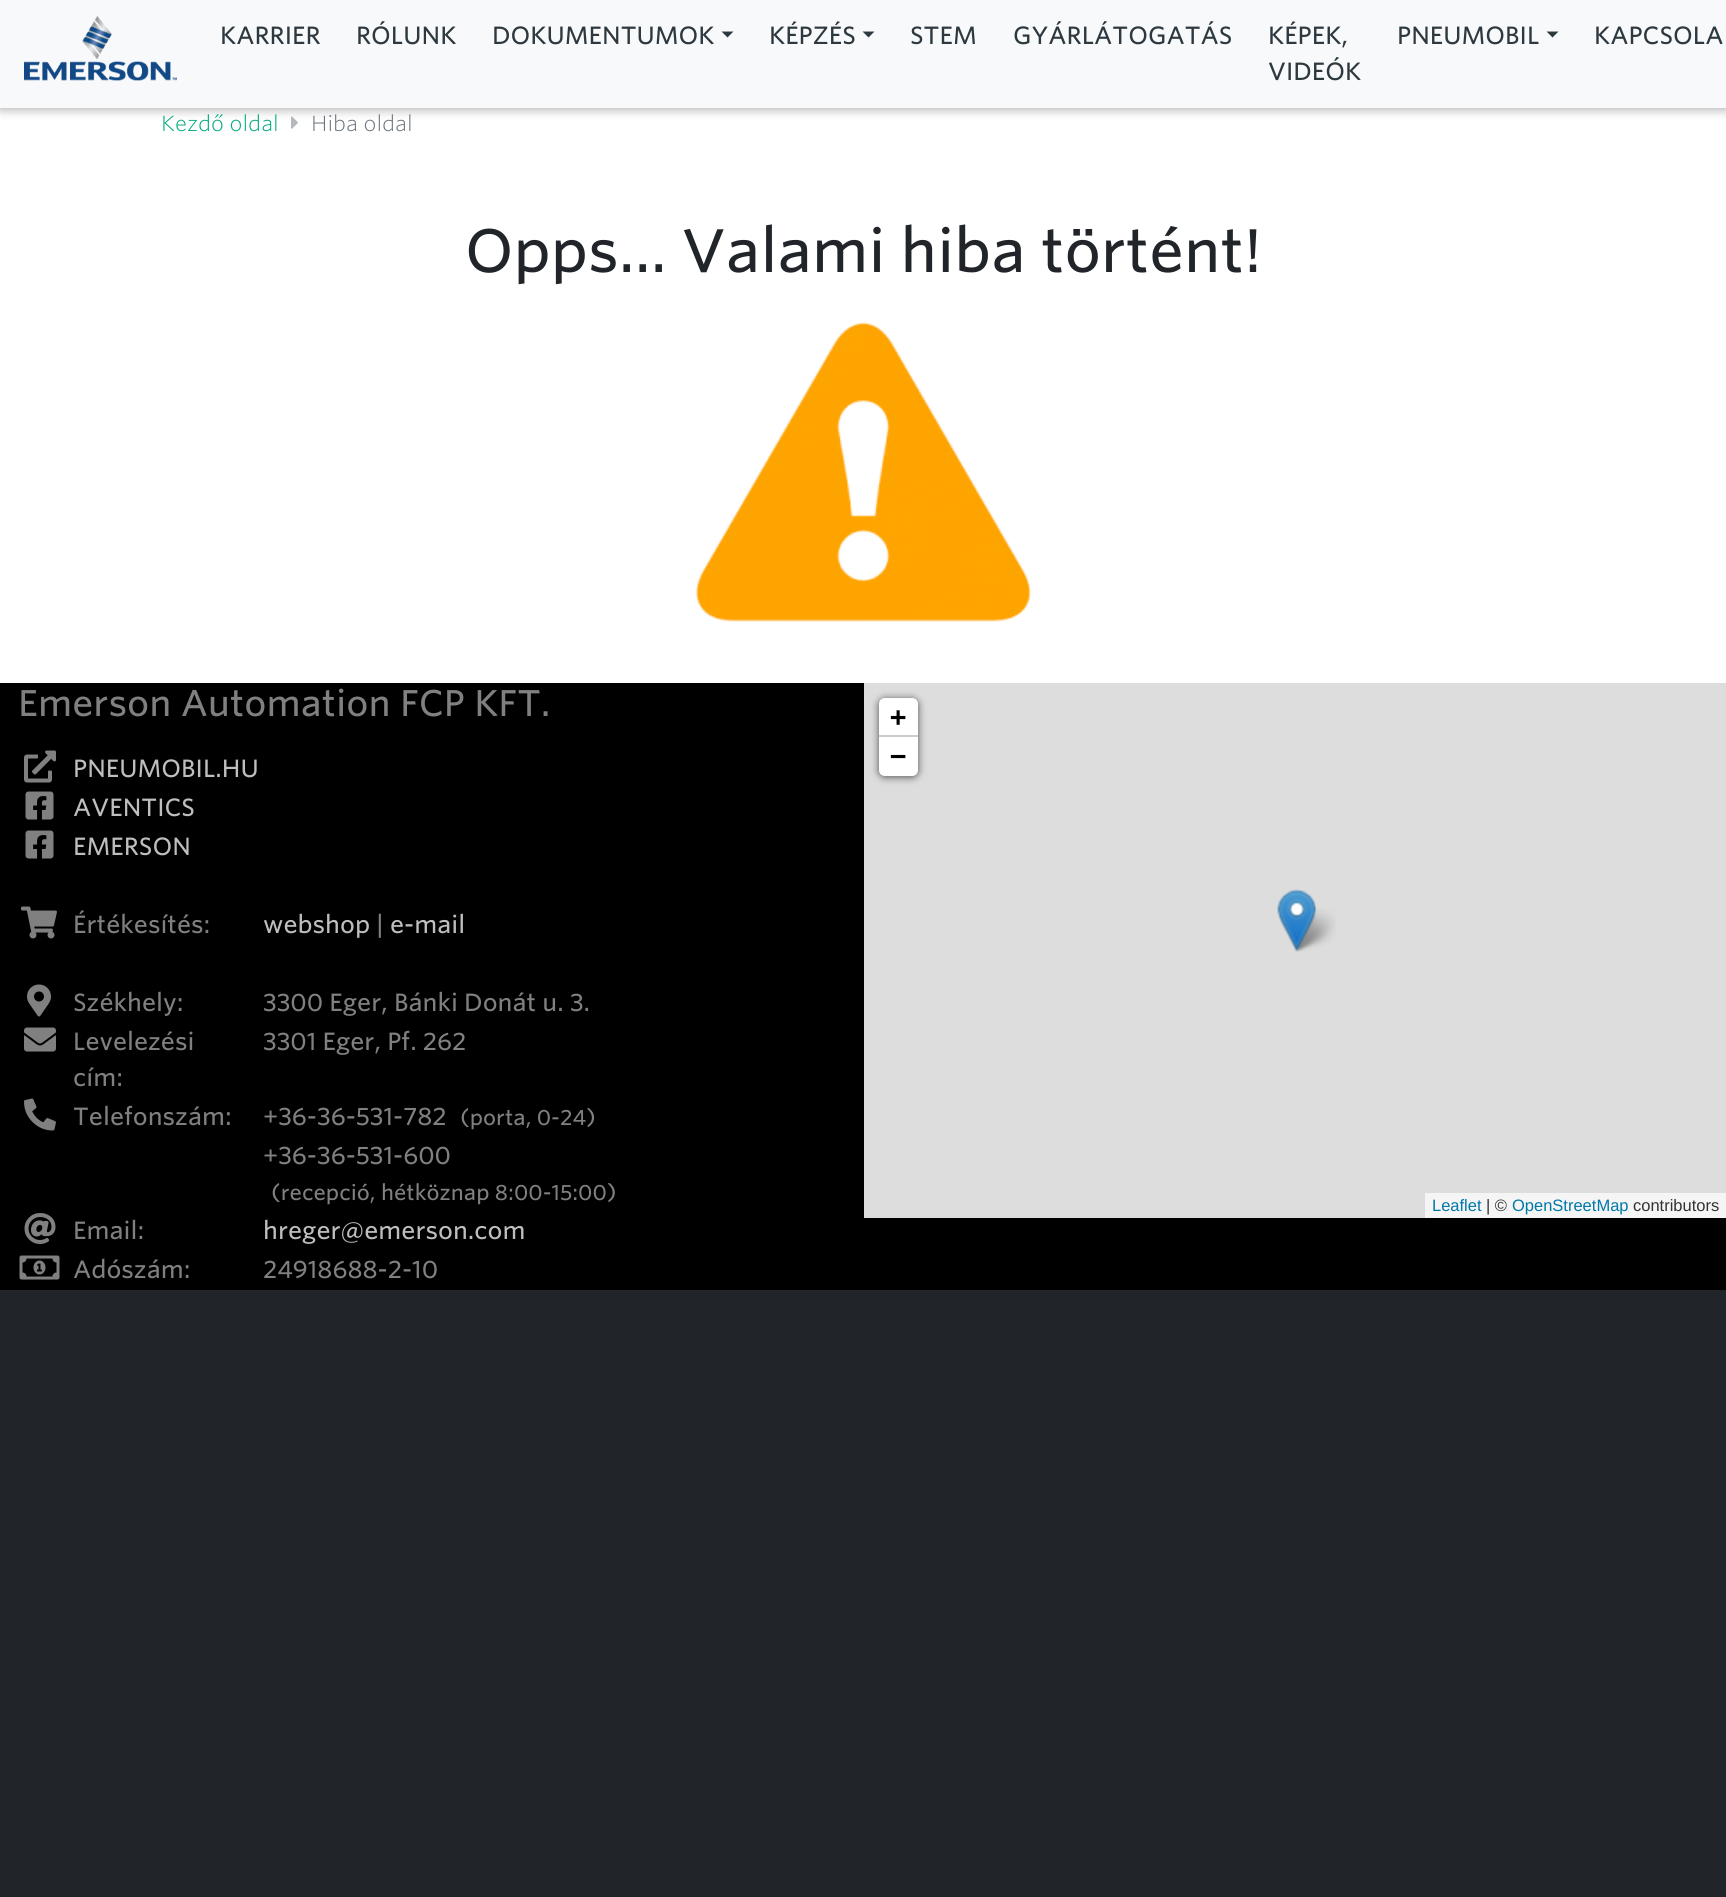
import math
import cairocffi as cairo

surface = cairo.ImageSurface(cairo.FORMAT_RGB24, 1726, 1897)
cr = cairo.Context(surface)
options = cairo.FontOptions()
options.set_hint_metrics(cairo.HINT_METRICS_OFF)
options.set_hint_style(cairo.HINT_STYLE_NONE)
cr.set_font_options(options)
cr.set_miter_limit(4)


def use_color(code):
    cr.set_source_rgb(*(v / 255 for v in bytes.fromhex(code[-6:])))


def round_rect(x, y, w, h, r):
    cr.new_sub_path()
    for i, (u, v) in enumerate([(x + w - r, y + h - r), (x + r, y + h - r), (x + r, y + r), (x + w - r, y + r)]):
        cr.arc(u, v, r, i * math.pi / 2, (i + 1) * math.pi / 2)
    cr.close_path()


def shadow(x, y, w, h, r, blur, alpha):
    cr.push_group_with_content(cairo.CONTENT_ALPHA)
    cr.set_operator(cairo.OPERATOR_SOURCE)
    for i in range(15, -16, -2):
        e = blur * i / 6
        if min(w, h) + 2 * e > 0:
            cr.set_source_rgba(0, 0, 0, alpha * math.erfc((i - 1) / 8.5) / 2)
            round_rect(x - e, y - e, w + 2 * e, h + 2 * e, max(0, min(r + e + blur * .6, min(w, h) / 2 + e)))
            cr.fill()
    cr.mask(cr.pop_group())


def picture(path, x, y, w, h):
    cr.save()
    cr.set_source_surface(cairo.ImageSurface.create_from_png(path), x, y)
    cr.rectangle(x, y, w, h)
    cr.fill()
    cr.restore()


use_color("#212529")
cr.paint()
use_color("#ffffff")
cr.rectangle(0, 108, 1726, 575)
cr.fill()
picture("img2.png", 291, 116, 7, 13)
use_color("#000000")
shadow(0, 2, 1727, 108, 0, 5, 0.3)
use_color("#f8f9fa")
cr.rectangle(0, 0, 1726, 108)
cr.fill()
picture("img1.png", 24, 15, 153, 66)
cr.select_font_face("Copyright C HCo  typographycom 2 Light")
cr.set_font_size(24)
use_color("#2d383f")
cr.move_to(220, 44)
cr.show_text("KARRIER")
cr.move_to(356, 44)
cr.show_text("RÓLUNK")
cr.move_to(492, 44)
cr.show_text("DOKUMENTUMOK")
cr.new_path()
cr.move_to(721.5, 31.5)
cr.line_to(733.5, 31.5)
cr.line_to(727.5, 37.5)
cr.close_path()
cr.fill()
cr.move_to(769, 44)
cr.show_text("KÉPZÉS")
cr.new_path()
cr.move_to(862.5, 31.5)
cr.line_to(874.5, 31.5)
cr.line_to(868.5, 37.5)
cr.close_path()
cr.fill()
cr.move_to(910, 44)
cr.show_text("STEM")
cr.move_to(1013, 44)
cr.show_text("GYÁRLÁTOGATÁS")
cr.move_to(1268, 44)
cr.show_text("KÉPEK,")
cr.move_to(1268, 80)
cr.show_text("VIDEÓK")
cr.move_to(1397, 44)
cr.show_text("PNEUMOBIL")
cr.new_path()
cr.move_to(1546.5, 31.5)
cr.line_to(1558.5, 31.5)
cr.line_to(1552.5, 37.5)
cr.close_path()
cr.fill()
cr.move_to(1594, 44)
cr.show_text("KAPCSOLA")
cr.select_font_face("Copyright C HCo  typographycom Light")
cr.set_font_size(21)
use_color("#00aa7e")
cr.move_to(161, 131)
cr.show_text("Kezdő oldal")
use_color("#6c757d")
cr.move_to(311, 131)
cr.show_text("Hiba oldal")
cr.select_font_face("Copyright C HCo  typographycom 2 Light")
cr.set_font_size(58.9)
use_color("#212529")
cr.move_to(465, 272)
cr.show_text("Opps... Valami hiba történt!")
picture("img3.png", 695, 322, 336, 300)
use_color("#000000")
cr.rectangle(0, 683, 1726, 607)
cr.fill()
cr.set_font_size(35.75)
use_color("#808080")
cr.move_to(18, 716)
cr.show_text("Emerson Automation FCP KFT.")
picture("img4.png", 24, 750, 32, 33)
cr.set_font_size(24)
use_color("#bebebe")
cr.move_to(73, 777)
cr.show_text("PNEUMOBIL.HU")
picture("img5.png", 25, 791, 29, 29)
cr.move_to(73, 816)
cr.show_text("AVENTICS")
picture("img5.png", 25, 830, 29, 29)
cr.move_to(73, 855)
cr.show_text("EMERSON")
picture("img6.png", 21, 906, 36, 33)
use_color("#808080")
cr.move_to(73, 933)
cr.show_text("Értékesítés:")
use_color("#bebebe")
cr.move_to(263, 933)
cr.show_text("webshop")
use_color("#808080")
cr.move_to(376, 933)
cr.show_text("|")
use_color("#bebebe")
cr.move_to(390, 933)
cr.show_text("e-mail")
picture("img7.png", 27, 984, 24, 33)
use_color("#808080")
cr.move_to(73, 1011)
cr.show_text("Székhely:")
cr.move_to(263, 1011)
cr.show_text("3300 Eger, Bánki Donát u. 3.")
picture("img8.png", 24, 1027, 32, 25)
cr.move_to(73, 1050)
cr.show_text("Levelezési")
cr.move_to(73, 1086)
cr.show_text("cím:")
cr.move_to(263, 1050)
cr.show_text("3301 Eger, Pf. 262")
picture("img9.png", 24, 1098, 32, 33)
cr.move_to(73, 1125)
cr.show_text("Telefonszám:")
cr.move_to(263, 1125)
cr.show_text("+36-36-531-782")
cr.set_font_size(21)
cr.move_to(460, 1125)
cr.show_text("(porta, 0-24)")
cr.set_font_size(24)
cr.move_to(263, 1164)
cr.show_text("+36-36-531-600")
cr.set_font_size(21)
cr.move_to(271, 1200)
cr.show_text("(recepció, hétköznap 8:00-15:00)")
picture("img10.png", 24, 1213, 32, 31)
cr.set_font_size(24)
cr.move_to(73, 1239)
cr.show_text("Email:")
use_color("#bebebe")
cr.move_to(263, 1239)
cr.show_text("hreger@emerson.com")
picture("img11.png", 19, 1255, 41, 25)
use_color("#808080")
cr.move_to(73, 1278)
cr.show_text("Adószám:")
cr.move_to(263, 1278)
cr.show_text("24918688-2-10")
use_color("#dddddd")
cr.rectangle(864, 683, 862, 535)
cr.fill()
use_color("#000000")
shadow(879, 699, 39, 78, 6, 4, 0.65)
use_color("#ffffff")
cr.new_path()
cr.move_to(885, 698)
cr.line_to(912, 698)
cr.curve_to(915.5, 698, 918, 700.5, 918, 704)
cr.line_to(918, 737)
cr.line_to(879, 737)
cr.line_to(879, 704)
cr.curve_to(879, 700.5, 881.5, 698, 885, 698)
cr.close_path()
cr.fill()
use_color("#cccccc")
cr.rectangle(879, 735, 39, 2)
cr.fill()
cr.select_font_face("DejaVu Sans Mono", cairo.FONT_SLANT_NORMAL, cairo.FONT_WEIGHT_BOLD)
cr.set_font_size(27)
use_color("#000000")
cr.move_to(890, 726)
cr.show_text("+")
use_color("#ffffff")
cr.new_path()
cr.move_to(879, 737)
cr.line_to(918, 737)
cr.line_to(918, 770)
cr.curve_to(918, 773.5, 915.5, 776, 912, 776)
cr.line_to(885, 776)
cr.curve_to(881.5, 776, 879, 773.5, 879, 770)
cr.close_path()
cr.fill()
use_color("#000000")
cr.move_to(890, 765)
cr.show_text("−")
use_color("#f5f5f5")
cr.rectangle(1425, 1193, 301, 25)
cr.fill()
cr.select_font_face("Liberation Sans")
cr.set_font_size(16.5)
use_color("#0078a8")
cr.move_to(1432, 1211)
cr.show_text("Leaflet")
use_color("#333333")
cr.move_to(1486, 1211)
cr.show_text("| ©")
use_color("#0078a8")
cr.move_to(1512, 1211)
cr.show_text("OpenStreetMap")
use_color("#333333")
cr.move_to(1633, 1211)
cr.show_text("contributors")
picture("img13.png", 1291, 908, 45, 44)
picture("img12.png", 1277, 889, 39, 63)
surface.write_to_png("result.png")
